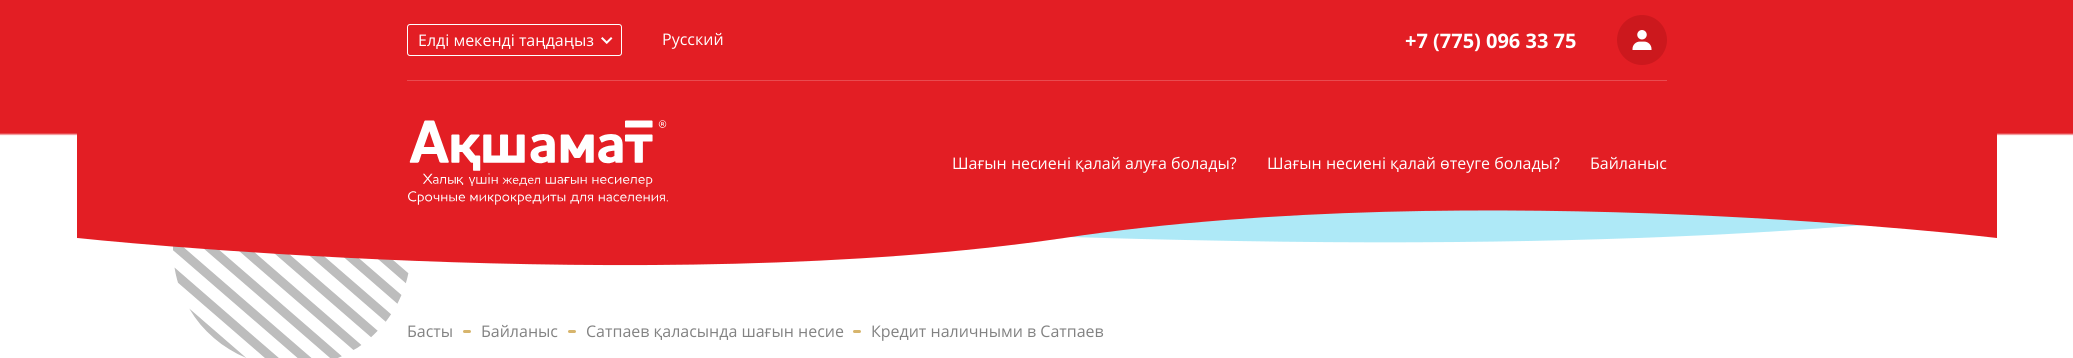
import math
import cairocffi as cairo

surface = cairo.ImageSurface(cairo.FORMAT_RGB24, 2073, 358)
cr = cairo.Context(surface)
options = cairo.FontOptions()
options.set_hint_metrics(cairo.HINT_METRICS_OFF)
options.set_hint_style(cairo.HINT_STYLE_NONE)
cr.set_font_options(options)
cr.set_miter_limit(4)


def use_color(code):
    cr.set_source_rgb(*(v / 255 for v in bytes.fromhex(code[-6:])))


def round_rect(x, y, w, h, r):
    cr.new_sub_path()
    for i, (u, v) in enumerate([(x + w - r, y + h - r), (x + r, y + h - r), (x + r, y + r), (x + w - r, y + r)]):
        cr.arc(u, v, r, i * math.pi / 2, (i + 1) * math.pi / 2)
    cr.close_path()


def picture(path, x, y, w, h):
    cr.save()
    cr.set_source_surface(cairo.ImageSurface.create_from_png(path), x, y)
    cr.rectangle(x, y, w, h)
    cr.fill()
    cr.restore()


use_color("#ffffff")
cr.paint()
picture("img1.png", 173, 246, 236, 112)
gradient = cairo.LinearGradient(1037, 266, 1037, 0)
gradient.add_color_stop_rgba(0, 0.89, 0.118, 0.141, 0)
gradient.add_color_stop_rgba(0.49, 0.89, 0.118, 0.141, 0)
gradient.add_color_stop_rgba(0.5, 0.89, 0.118, 0.141, 1)
gradient.add_color_stop_rgba(1, 0.89, 0.118, 0.141, 1)
cr.set_source(gradient)
cr.rectangle(0, 0, 2073, 136)
cr.fill()
use_color("#aee9f7")
cr.new_path()
cr.move_to(1997, 82)
cr.line_to(77, 82)
cr.line_to(77, 191)
cr.curve_to(77, 191, 730, 232, 1236, 241)
cr.curve_to(1741, 250, 1997, 211, 1997, 211)
cr.close_path()
cr.fill()
use_color("#e31e24")
cr.new_path()
cr.move_to(77, 82)
cr.line_to(1997, 82)
cr.line_to(1997, 238)
cr.curve_to(1997, 238, 1477, 176, 1064, 238)
cr.curve_to(650, 299, 77, 238, 77, 238)
cr.close_path()
cr.fill()
use_color("#e94b50")
cr.rectangle(407, 80, 1260, 1)
cr.fill()
round_rect(407.5, 24.5, 214, 31, 2.5)
use_color("#ffffff")
cr.set_line_width(1)
cr.stroke()
cr.select_font_face("Open Sans")
cr.set_font_size(16)
cr.move_to(418, 46)
cr.show_text("Елді мекенді таңдаңыз")
picture("img2.png", 601, 37, 12, 7)
cr.move_to(662, 45)
cr.show_text("Русский")
cr.select_font_face("Open Sans", cairo.FONT_SLANT_NORMAL, cairo.FONT_WEIGHT_BOLD)
cr.set_font_size(20)
cr.move_to(1405, 48)
cr.show_text("+7 (775) 096 33 75")
use_color("#cc181d")
cr.new_path()
cr.arc(1642, 40, 25, 0, 2 * math.pi)
cr.fill()
picture("img3.png", 1632, 30, 20, 20)
picture("img4.png", 408, 120, 260, 85)
cr.select_font_face("Open Sans")
cr.set_font_size(16)
use_color("#ffffff")
cr.move_to(952, 169)
cr.show_text("Шағын несиені қалай алуға болады?")
cr.move_to(1267, 169)
cr.show_text("Шағын несиені қалай өтеуге болады?")
cr.move_to(1590, 169)
cr.show_text("Байланыс")
use_color("#828282")
cr.move_to(407, 337)
cr.show_text("Басты")
use_color("#d7b56d")
round_rect(463, 330, 8, 3, 1.5)
cr.fill()
use_color("#828282")
cr.move_to(481, 337)
cr.show_text("Байланыс")
use_color("#d7b56d")
round_rect(568, 330, 8, 3, 1.5)
cr.fill()
use_color("#828282")
cr.move_to(586, 337)
cr.show_text("Сатпаев қаласында шағын несие")
use_color("#d7b56d")
round_rect(853, 330, 8, 3, 1.5)
cr.fill()
use_color("#828282")
cr.move_to(871, 337)
cr.show_text("Кредит наличными в Сатпаев")
surface.write_to_png("result.png")
